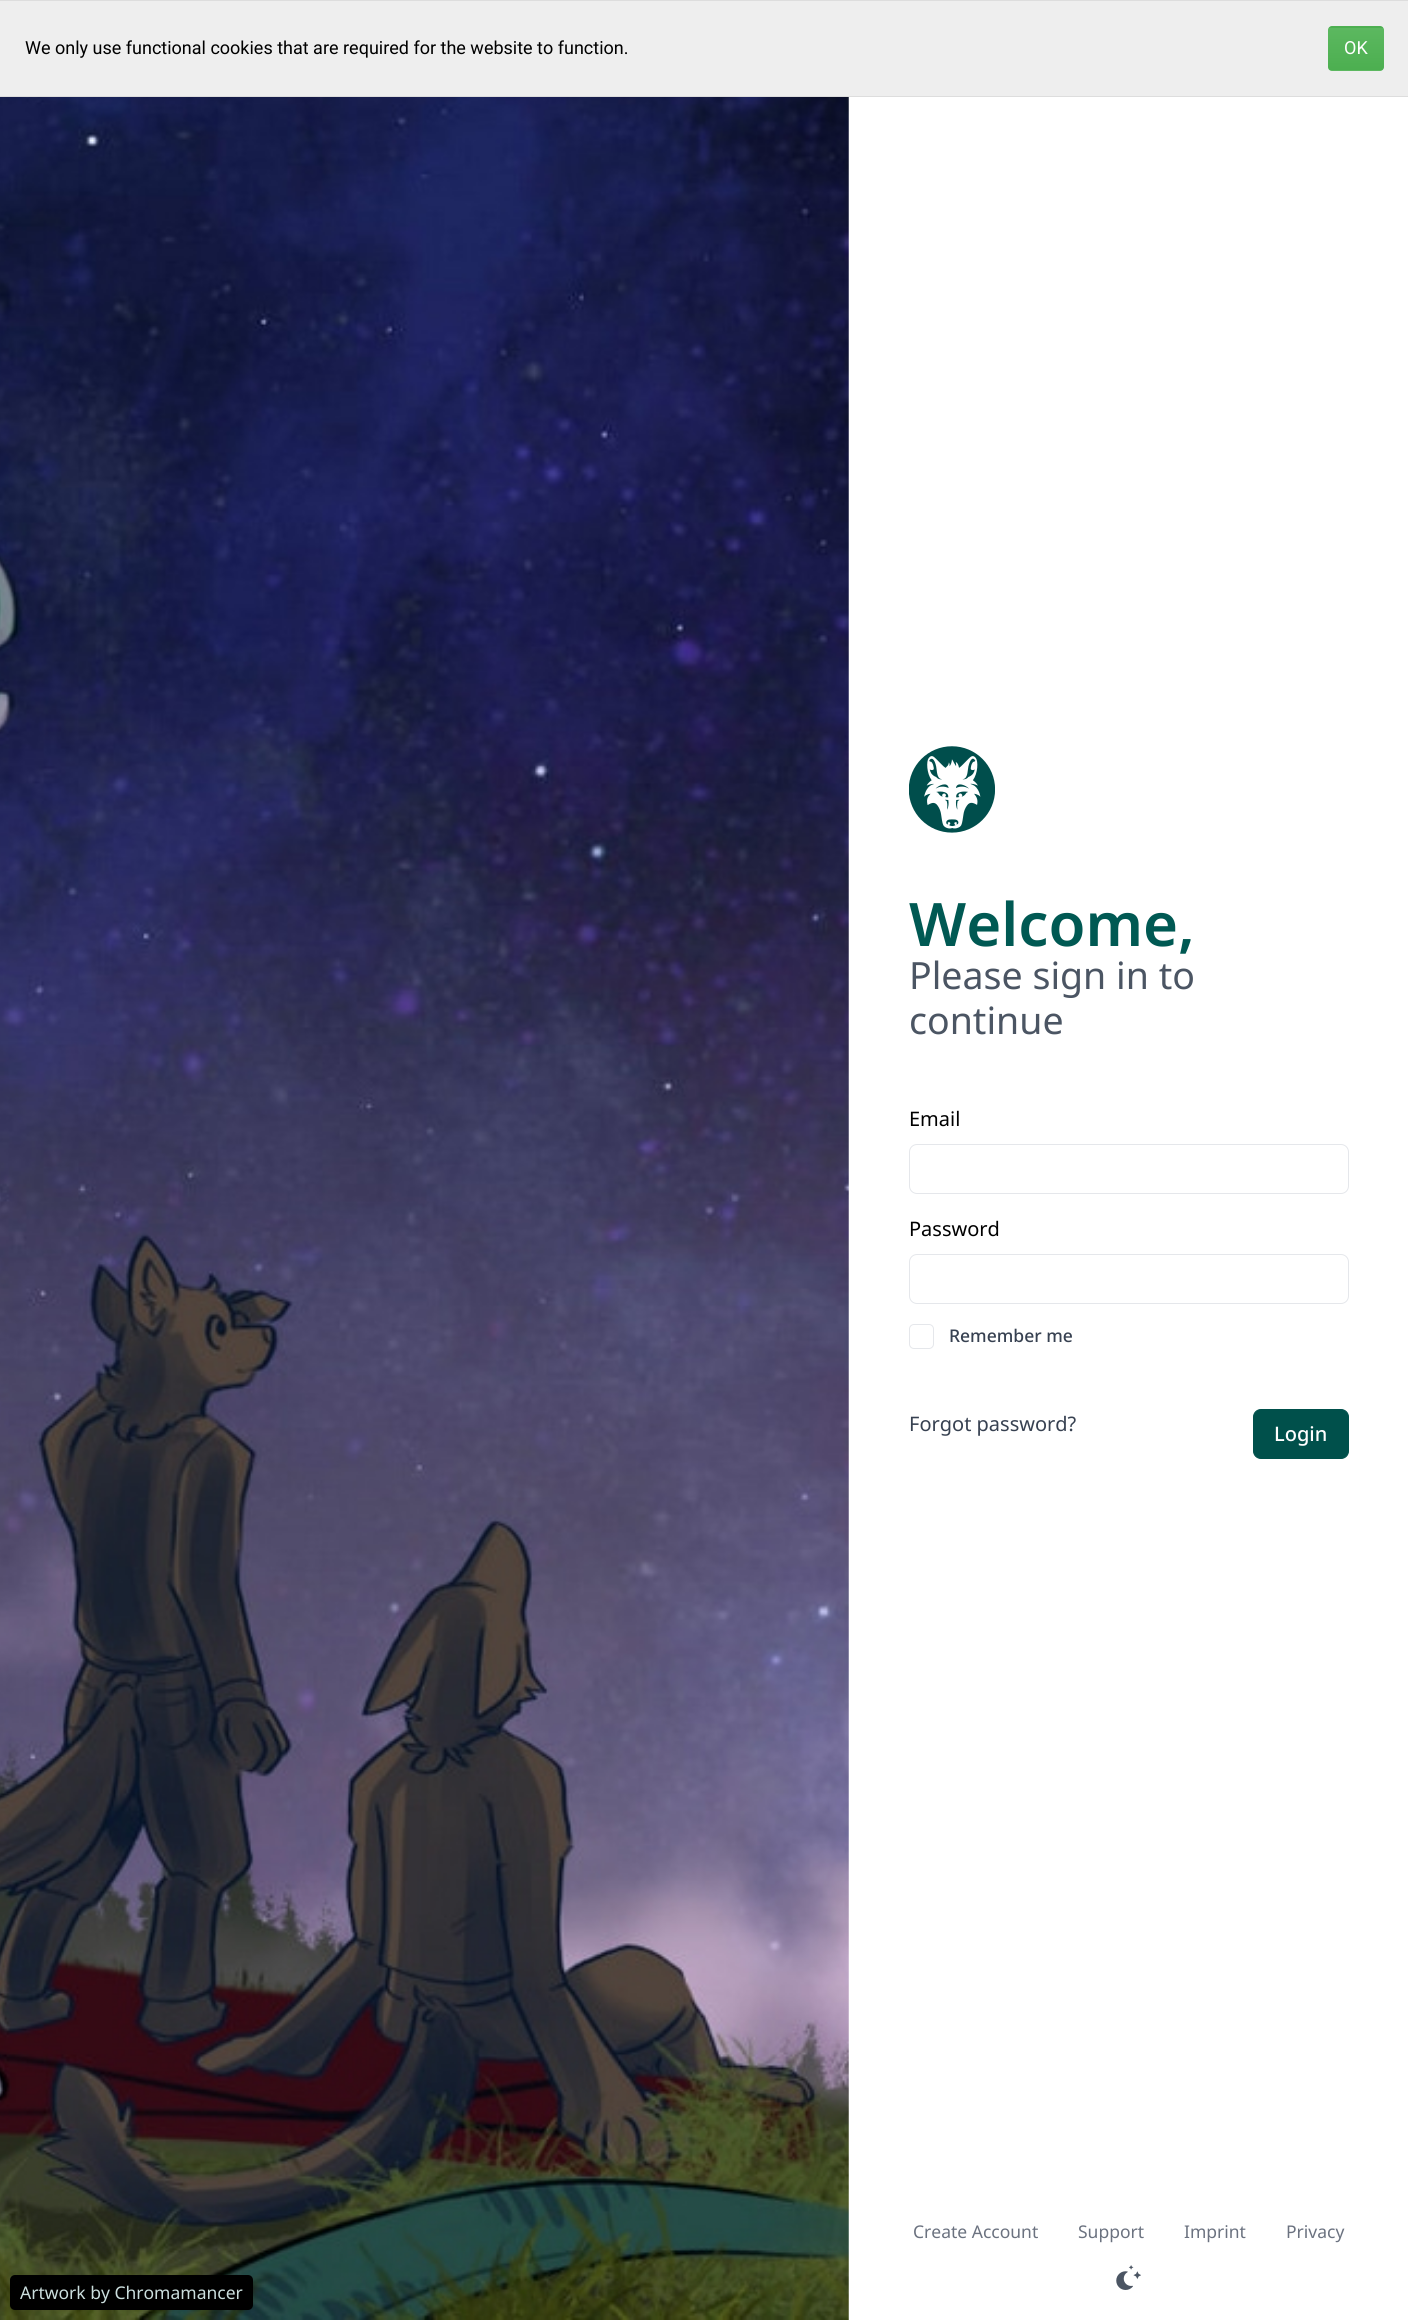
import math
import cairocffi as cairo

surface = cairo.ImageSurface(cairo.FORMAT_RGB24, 1408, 2320)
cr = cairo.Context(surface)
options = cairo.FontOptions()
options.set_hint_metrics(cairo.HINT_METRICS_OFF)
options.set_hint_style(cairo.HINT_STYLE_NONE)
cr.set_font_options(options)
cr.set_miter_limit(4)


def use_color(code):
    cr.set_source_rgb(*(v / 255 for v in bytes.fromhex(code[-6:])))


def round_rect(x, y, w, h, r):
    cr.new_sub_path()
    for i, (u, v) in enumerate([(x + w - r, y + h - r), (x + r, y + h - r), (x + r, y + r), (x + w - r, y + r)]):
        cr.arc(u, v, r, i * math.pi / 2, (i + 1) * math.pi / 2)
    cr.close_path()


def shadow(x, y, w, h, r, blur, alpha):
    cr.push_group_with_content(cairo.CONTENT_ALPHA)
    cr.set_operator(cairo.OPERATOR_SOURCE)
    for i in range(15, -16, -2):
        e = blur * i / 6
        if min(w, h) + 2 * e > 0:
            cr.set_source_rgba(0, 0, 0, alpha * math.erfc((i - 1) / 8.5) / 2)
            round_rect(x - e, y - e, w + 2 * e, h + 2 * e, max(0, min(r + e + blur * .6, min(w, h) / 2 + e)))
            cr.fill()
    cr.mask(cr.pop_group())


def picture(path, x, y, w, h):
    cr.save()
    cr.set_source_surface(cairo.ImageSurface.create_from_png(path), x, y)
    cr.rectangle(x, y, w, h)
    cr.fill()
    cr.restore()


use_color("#ffffff")
cr.paint()
use_color("#eeeeee")
cr.rectangle(0, 1, 1408, 95)
cr.fill()
use_color("#dddddd")
cr.rectangle(0, 0, 1408, 1)
cr.fill()
cr.rectangle(0, 96, 1408, 1)
cr.fill()
cr.select_font_face("Roboto")
cr.set_font_size(18)
use_color("#000000")
cr.move_to(25, 54)
cr.show_text("We only use functional cookies that are required for the website to function.")
cr.save()
round_rect(1328, 26, 56, 45, 4)
cr.clip()
gradient = cairo.LinearGradient(1356, -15, 1356, 28)
gradient.add_color_stop_rgba(0, 0.361, 0.722, 0.376, 1)
gradient.add_color_stop_rgba(1, 0.298, 0.686, 0.314, 1)
cr.set_source(gradient)
cr.rectangle(1328, 26, 56, 2)
cr.fill()
gradient = cairo.LinearGradient(1356, 27, 1356, 70)
gradient.add_color_stop_rgba(0, 0.361, 0.722, 0.376, 1)
gradient.add_color_stop_rgba(1, 0.298, 0.686, 0.314, 1)
cr.set_source(gradient)
cr.rectangle(1328, 28, 56, 42)
cr.fill()
gradient = cairo.LinearGradient(1356, 70, 1356, 113)
gradient.add_color_stop_rgba(0, 0.361, 0.722, 0.376, 1)
gradient.add_color_stop_rgba(1, 0.298, 0.686, 0.314, 1)
cr.set_source(gradient)
cr.rectangle(1328, 70, 56, 1)
cr.fill()
cr.restore()
use_color("#ffffff")
cr.move_to(1344, 54)
cr.show_text("OK")
picture("img1.png", 909, 746, 86, 87)
cr.select_font_face("Noto Sans SemiBold")
cr.set_font_size(60)
use_color("#005953")
cr.move_to(909, 946)
cr.show_text("Welcome,")
cr.select_font_face("Noto Sans")
cr.set_font_size(37.5)
use_color("#4b5563")
cr.move_to(909, 989)
cr.show_text("Please sign in to")
cr.move_to(909, 1034)
cr.show_text("continue")
cr.set_font_size(20)
use_color("#000000")
cr.move_to(909, 1126)
cr.show_text("Email")
round_rect(909.5, 1144.5, 439, 49, 7.5)
use_color("#e5e7eb")
cr.set_line_width(1)
cr.stroke()
use_color("#000000")
cr.move_to(909, 1236)
cr.show_text("Password")
round_rect(909.5, 1254.5, 439, 49, 7.5)
use_color("#e5e7eb")
cr.stroke()
round_rect(909.5, 1324.5, 24, 24, 4.5)
cr.stroke()
cr.select_font_face("Noto Sans Medium")
cr.set_font_size(17.5)
use_color("#374151")
cr.move_to(949, 1342)
cr.show_text("Remember me")
cr.select_font_face("Noto Sans")
cr.set_font_size(20)
cr.move_to(909, 1431)
cr.show_text("Forgot password?")
use_color("#00504b")
round_rect(1253.5, 1409.5, 95, 49, 7.5)
cr.fill_preserve()
cr.stroke()
cr.select_font_face("Noto Sans Medium")
use_color("#ffffff")
cr.move_to(1274, 1441)
cr.show_text("Login")
cr.select_font_face("Noto Sans")
cr.set_font_size(17.5)
use_color("#6b7280")
cr.move_to(913, 2238)
cr.show_text("Create Account")
cr.move_to(1078, 2238)
cr.show_text("Support")
cr.move_to(1184, 2238)
cr.show_text("Imprint")
cr.move_to(1286, 2238)
cr.show_text("Privacy")
picture("img2.png", 1116, 2265, 25, 25)
picture("img3.png", 0, 97, 849, 2223)
use_color("#000000")
shadow(11, 2278, 240, 32, 4, 1, 0.1)
use_color("#000000")
round_rect(10, 2275, 243, 35, 5)
cr.fill()
use_color("#cbdedd")
cr.move_to(20, 2299)
cr.show_text("Artwork by Chromamancer")
surface.write_to_png("result.png")
